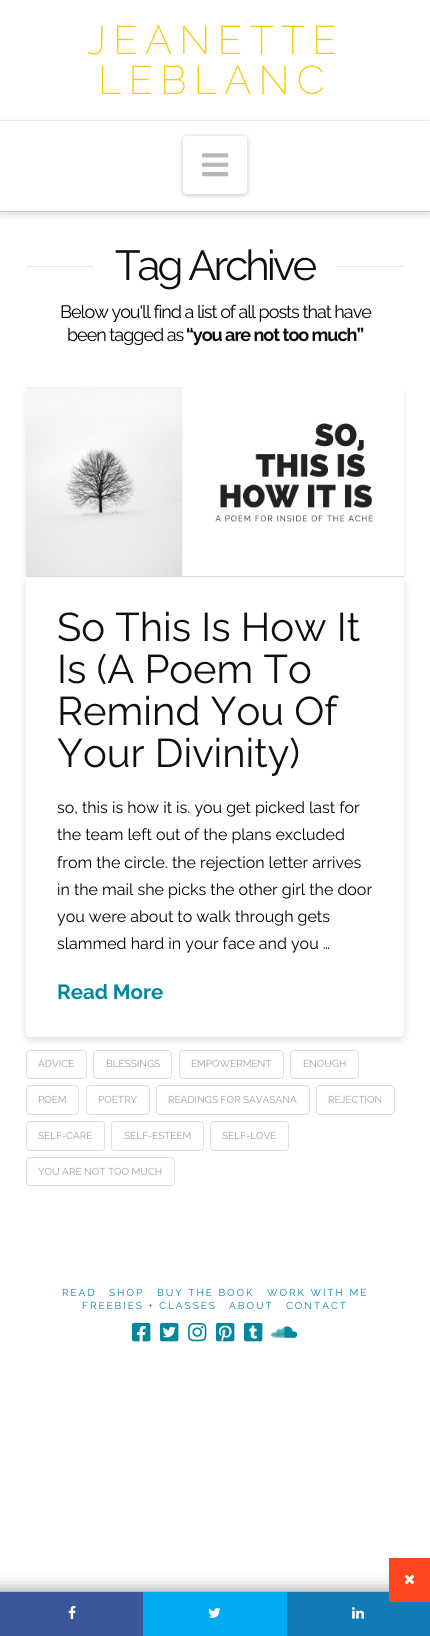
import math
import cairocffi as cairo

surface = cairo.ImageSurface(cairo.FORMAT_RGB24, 430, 1636)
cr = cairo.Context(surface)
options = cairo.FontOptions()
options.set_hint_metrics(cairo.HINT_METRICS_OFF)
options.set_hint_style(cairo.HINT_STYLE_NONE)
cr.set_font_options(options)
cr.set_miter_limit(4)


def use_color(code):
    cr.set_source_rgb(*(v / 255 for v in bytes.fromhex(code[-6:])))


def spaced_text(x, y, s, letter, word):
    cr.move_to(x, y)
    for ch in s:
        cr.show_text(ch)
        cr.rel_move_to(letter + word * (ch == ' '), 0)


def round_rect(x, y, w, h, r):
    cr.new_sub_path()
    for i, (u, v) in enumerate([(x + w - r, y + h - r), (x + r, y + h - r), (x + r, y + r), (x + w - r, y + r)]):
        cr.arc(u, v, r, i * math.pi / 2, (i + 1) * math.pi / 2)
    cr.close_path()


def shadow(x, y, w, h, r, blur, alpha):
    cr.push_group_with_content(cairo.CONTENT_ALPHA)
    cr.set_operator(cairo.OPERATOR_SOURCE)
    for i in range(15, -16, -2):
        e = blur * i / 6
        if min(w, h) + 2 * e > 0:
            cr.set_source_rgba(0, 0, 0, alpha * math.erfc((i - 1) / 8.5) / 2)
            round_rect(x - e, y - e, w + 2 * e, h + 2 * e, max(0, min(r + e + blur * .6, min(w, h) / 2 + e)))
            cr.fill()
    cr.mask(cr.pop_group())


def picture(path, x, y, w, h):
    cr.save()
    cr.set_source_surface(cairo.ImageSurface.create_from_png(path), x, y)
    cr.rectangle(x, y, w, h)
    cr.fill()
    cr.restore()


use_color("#ffffff")
cr.paint()
use_color("#f2f2f2")
cr.rectangle(0, 120, 430, 1)
cr.fill()
cr.select_font_face("Raleway ExtraLight")
cr.set_font_size(40)
use_color("#f9c907")
spaced_text(87, 54, "JEANETTE", 7.25, 0)
spaced_text(98, 94, "LEBLANC", 7.25, 0)
cr.save()
cr.set_fill_rule(cairo.FILL_RULE_EVEN_ODD)
cr.new_path()
cr.move_to(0, 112)
cr.line_to(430, 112)
cr.line_to(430, 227)
cr.line_to(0, 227)
cr.close_path()
cr.move_to(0, 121)
cr.line_to(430, 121)
cr.line_to(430, 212)
cr.line_to(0, 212)
cr.close_path()
cr.clip()
use_color("#000000")
shadow(0, 124, 430, 91, 0, 3.5, 0.13)
cr.restore()
use_color("#cccccc")
cr.rectangle(0, 211, 430, 1)
cr.fill()
use_color("#000000")
shadow(183, 137, 64, 58, 4, 2.5, 0.25)
use_color("#ffffff")
round_rect(183, 136, 64, 58, 4)
cr.fill()
picture("img1.png", 202, 153, 27, 24)
use_color("#e6e6e6")
cr.rectangle(26, 266, 68, 1)
cr.fill()
cr.select_font_face("Raleway")
cr.set_font_size(42)
use_color("#0f0f0f")
spaced_text(115, 280, "Tag Archive", -3, 0)
use_color("#e6e6e6")
cr.rectangle(336, 266, 68, 1)
cr.fill()
cr.set_font_size(18)
use_color("#000000")
spaced_text(60, 318, "Below you'll find a list of all posts that have", -1, 0)
spaced_text(67, 341, "been tagged as", -1, 0)
cr.select_font_face("Raleway", cairo.FONT_SLANT_NORMAL, cairo.FONT_WEIGHT_BOLD)
use_color("#0f0f0f")
spaced_text(186, 341, "“you are not too much”", -1, 0)
use_color("#000000")
shadow(26, 580, 378, 460, 4, 3.5, 0.13)
use_color("#ffffff")
cr.new_path()
cr.move_to(26, 577)
cr.line_to(404, 577)
cr.line_to(404, 1033)
cr.curve_to(404, 1035, 402, 1037, 400, 1037)
cr.line_to(30, 1037)
cr.curve_to(28, 1037, 26, 1035, 26, 1033)
cr.close_path()
cr.fill()
use_color("#000000")
shadow(26, 393, 370, 182, 0, 2, 0.13)
shadow(34, 393, 370, 182, 0, 2, 0.13)
use_color("#dddddd")
cr.rectangle(26, 576, 378, 1)
cr.fill()
picture("img2.png", 26, 387, 378, 189)
cr.select_font_face("Raleway")
cr.set_font_size(40)
use_color("#0f0f0f")
cr.move_to(57, 641)
cr.show_text("So This Is How It")
cr.move_to(57, 683)
cr.show_text("Is (A Poem To")
cr.move_to(57, 725)
cr.show_text("Remind You Of")
cr.move_to(57, 767)
cr.show_text("Your Divinity)")
cr.set_font_size(16)
use_color("#000000")
cr.move_to(57, 813)
cr.show_text("so, this is how it is. you get picked last for")
cr.move_to(57, 840)
cr.show_text("the team left out of the plans excluded")
cr.move_to(57, 868)
cr.show_text("from the circle. the rejection letter arrives")
cr.move_to(57, 895)
cr.show_text("in the mail she picks the other girl the door")
cr.move_to(57, 922)
cr.show_text("you were about to walk through gets")
cr.move_to(57, 949)
cr.show_text("slammed hard in your face and you …")
cr.select_font_face("Raleway", cairo.FONT_SLANT_NORMAL, cairo.FONT_WEIGHT_BOLD)
cr.set_font_size(20.5)
use_color("#02879c")
cr.move_to(57, 999)
cr.show_text("Read More")
round_rect(26.5, 1050.5, 60, 28, 3.5)
use_color("#dfdfdf")
cr.set_line_width(1)
cr.stroke()
cr.select_font_face("Raleway")
cr.set_font_size(10)
use_color("#9f9f9f")
cr.move_to(38, 1067)
cr.show_text("ADVICE")
round_rect(93.5, 1050.5, 78, 28, 3.5)
use_color("#dfdfdf")
cr.stroke()
use_color("#9f9f9f")
cr.move_to(106, 1067)
cr.show_text("BLESSINGS")
round_rect(179.5, 1050.5, 104, 28, 3.5)
use_color("#dfdfdf")
cr.stroke()
use_color("#9f9f9f")
cr.move_to(191, 1067)
cr.show_text("EMPOWERMENT")
round_rect(290.5, 1050.5, 68, 28, 3.5)
use_color("#dfdfdf")
cr.stroke()
use_color("#9f9f9f")
cr.move_to(303, 1067)
cr.show_text("ENOUGH")
round_rect(26.5, 1085.5, 52, 29, 3.5)
use_color("#dfdfdf")
cr.stroke()
use_color("#9f9f9f")
cr.move_to(38, 1103)
cr.show_text("POEM")
round_rect(86.5, 1085.5, 63, 29, 3.5)
use_color("#dfdfdf")
cr.stroke()
use_color("#9f9f9f")
cr.move_to(98, 1103)
cr.show_text("POETRY")
round_rect(156.5, 1085.5, 153, 29, 3.5)
use_color("#dfdfdf")
cr.stroke()
use_color("#9f9f9f")
cr.move_to(168, 1103)
cr.show_text("READINGS FOR SAVASANA")
round_rect(316.5, 1085.5, 78, 29, 3.5)
use_color("#dfdfdf")
cr.stroke()
use_color("#9f9f9f")
cr.move_to(328, 1103)
cr.show_text("REJECTION")
round_rect(26.5, 1121.5, 78, 29, 3.5)
use_color("#dfdfdf")
cr.stroke()
use_color("#9f9f9f")
cr.move_to(38, 1139)
cr.show_text("SELF-CARE")
round_rect(111.5, 1121.5, 92, 29, 3.5)
use_color("#dfdfdf")
cr.stroke()
use_color("#9f9f9f")
cr.move_to(124, 1139)
cr.show_text("SELF-ESTEEM")
round_rect(210.5, 1121.5, 78, 29, 3.5)
use_color("#dfdfdf")
cr.stroke()
use_color("#9f9f9f")
cr.move_to(222, 1139)
cr.show_text("SELF-LOVE")
round_rect(26.5, 1157.5, 148, 28, 3.5)
use_color("#dfdfdf")
cr.stroke()
use_color("#9f9f9f")
cr.move_to(38, 1175)
cr.show_text("YOU ARE NOT TOO MUCH")
use_color("#02879c")
spaced_text(62, 1296, "READ", 2, 0)
spaced_text(109, 1296, "SHOP", 2, 0)
spaced_text(157, 1296, "BUY THE BOOK", 2, 0)
spaced_text(267, 1296, "WORK WITH ME", 2, 0)
spaced_text(82, 1309, "FREEBIES + CLASSES", 2, 0)
spaced_text(229, 1309, "ABOUT", 2, 0)
spaced_text(286, 1309, "CONTACT", 2, 0)
picture("img3.png", 132, 1322, 19, 20)
picture("img4.png", 160, 1322, 19, 20)
picture("img5.png", 188, 1322, 19, 20)
picture("img6.png", 216, 1322, 19, 20)
picture("img7.png", 244, 1322, 19, 20)
picture("img8.png", 271, 1326, 27, 12)
use_color("#000000")
shadow(-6, 1596, 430, 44, 0, 10, 0.75)
use_color("#117bb6")
cr.rectangle(287, 1592, 143, 44)
cr.fill()
use_color("#fc461e")
cr.rectangle(389, 1558, 41, 44)
cr.fill()
picture("img9.png", 404, 1574, 11, 11)
use_color("#3a579a")
cr.rectangle(0, 1592, 143, 44)
cr.fill()
picture("img10.png", 68, 1606, 8, 13)
use_color("#01abf0")
cr.rectangle(143, 1592, 144, 44)
cr.fill()
picture("img11.png", 208, 1608, 13, 10)
picture("img12.png", 352, 1607, 12, 12)
surface.write_to_png("result.png")
